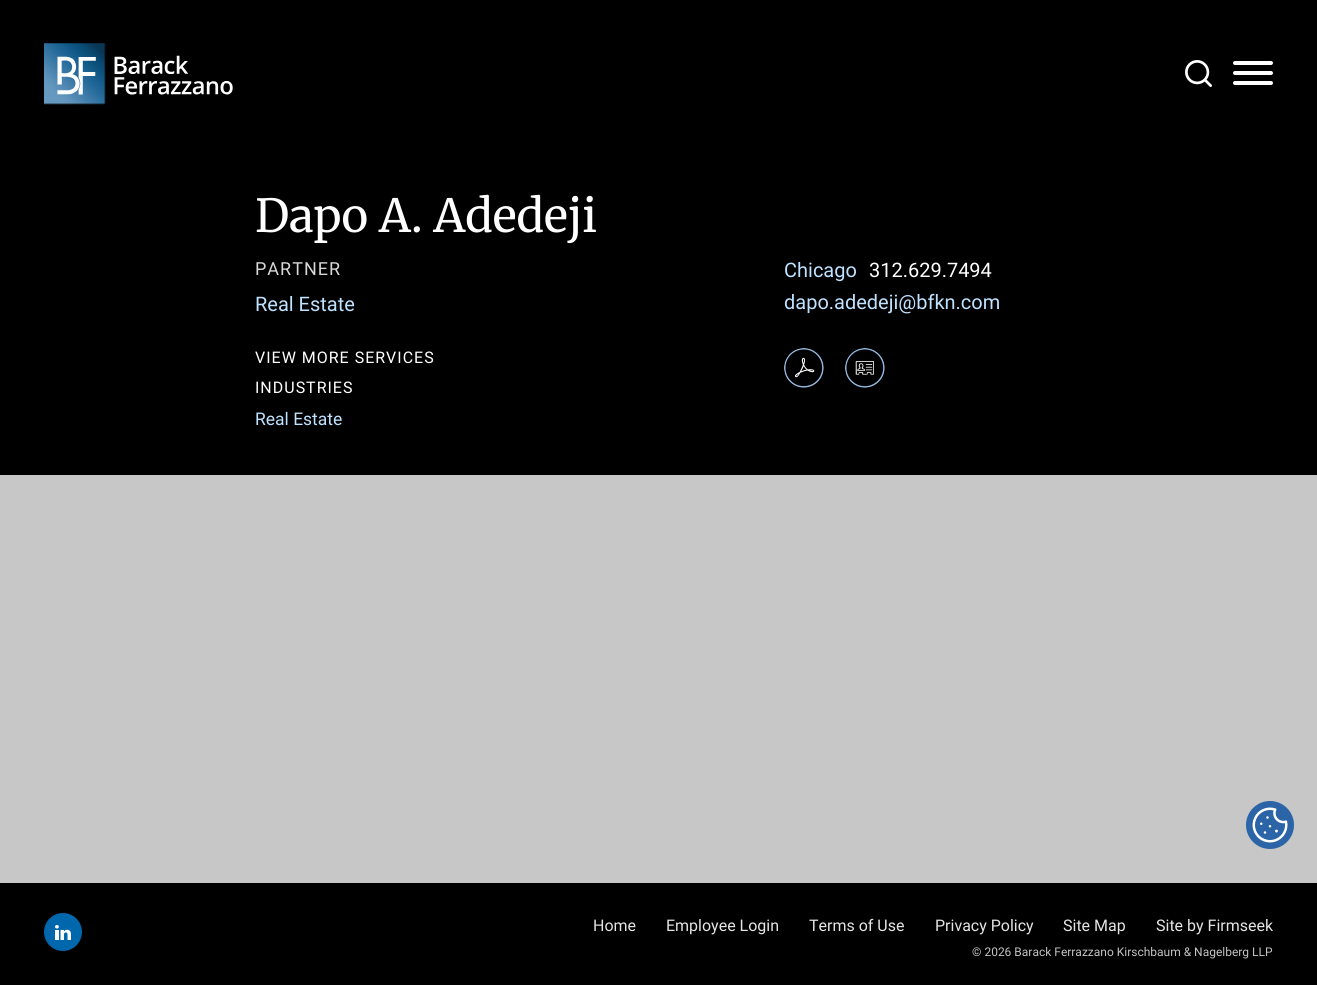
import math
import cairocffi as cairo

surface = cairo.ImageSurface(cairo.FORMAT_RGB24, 1317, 985)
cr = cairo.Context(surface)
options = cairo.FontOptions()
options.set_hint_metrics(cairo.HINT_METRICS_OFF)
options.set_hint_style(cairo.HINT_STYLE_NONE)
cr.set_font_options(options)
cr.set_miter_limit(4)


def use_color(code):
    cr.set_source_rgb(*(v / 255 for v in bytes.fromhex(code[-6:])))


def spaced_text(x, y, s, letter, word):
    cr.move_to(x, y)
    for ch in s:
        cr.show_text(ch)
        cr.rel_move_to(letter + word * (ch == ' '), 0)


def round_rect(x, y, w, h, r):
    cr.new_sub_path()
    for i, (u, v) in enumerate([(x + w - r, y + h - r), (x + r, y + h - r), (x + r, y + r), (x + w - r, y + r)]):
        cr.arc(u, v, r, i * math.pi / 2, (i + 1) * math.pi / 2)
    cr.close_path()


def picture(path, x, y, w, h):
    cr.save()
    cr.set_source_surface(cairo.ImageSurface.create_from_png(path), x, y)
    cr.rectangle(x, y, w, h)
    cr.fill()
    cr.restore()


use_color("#000000")
cr.paint()
picture("img1.png", 44, 43, 189, 62)
picture("img2.png", 1185, 60, 27, 27)
use_color("#ffffff")
round_rect(1233, 61, 40, 4, 2)
cr.fill()
round_rect(1233, 71, 40, 4, 2)
cr.fill()
round_rect(1233, 81, 40, 4, 2)
cr.fill()
use_color("#c7c7c7")
cr.rectangle(0, 475, 1317, 408)
cr.fill()
use_color("#2b65a7")
cr.arc(1270, 825, 24, 0, 2 * math.pi)
cr.fill()
picture("img3.png", 1252, 807, 36, 36)
cr.select_font_face("Merriweather")
cr.set_font_size(45.5)
use_color("#ffffff")
cr.move_to(255, 232)
cr.show_text("Dapo A. Adedeji")
cr.select_font_face("Roboto")
cr.set_font_size(18)
use_color("#d8d8d8")
spaced_text(255, 275, "PARTNER", 1, 0)
cr.set_font_size(20)
use_color("#bfe2ff")
cr.move_to(255, 311)
cr.show_text("Real Estate")
cr.move_to(784, 277)
cr.show_text("Chicago")
use_color("#ffffff")
cr.move_to(869, 277)
cr.show_text("312.629.7494")
use_color("#bfe2ff")
cr.move_to(784, 309)
cr.show_text("dapo.adedeji@bfkn.com")
cr.set_font_size(16)
use_color("#ffffff")
spaced_text(255, 363, "VIEW MORE SERVICES", 1, 0)
spaced_text(255, 393, "INDUSTRIES", 1, 0)
cr.set_font_size(17.5)
use_color("#bfe2ff")
cr.move_to(255, 425)
cr.show_text("Real Estate")
picture("img4.png", 784, 348, 40, 40)
picture("img5.png", 845, 348, 40, 40)
use_color("#0067ac")
cr.arc(63, 932, 19, 0, 2 * math.pi)
cr.fill()
picture("img6.png", 55, 925, 16, 15)
cr.set_font_size(16)
use_color("#e5e5e5")
cr.move_to(593, 931)
cr.show_text("Home")
cr.move_to(666, 931)
cr.show_text("Employee Login")
cr.move_to(809, 931)
cr.show_text("Terms of Use")
cr.move_to(935, 931)
cr.show_text("Privacy Policy")
cr.move_to(1063, 931)
cr.show_text("Site Map")
cr.move_to(1156, 931)
cr.show_text("Site by Firmseek")
cr.set_font_size(12)
use_color("#c5c4c4")
cr.move_to(972, 956)
cr.show_text("© 2026 Barack Ferrazzano Kirschbaum & Nagelberg LLP")
surface.write_to_png("result.png")
